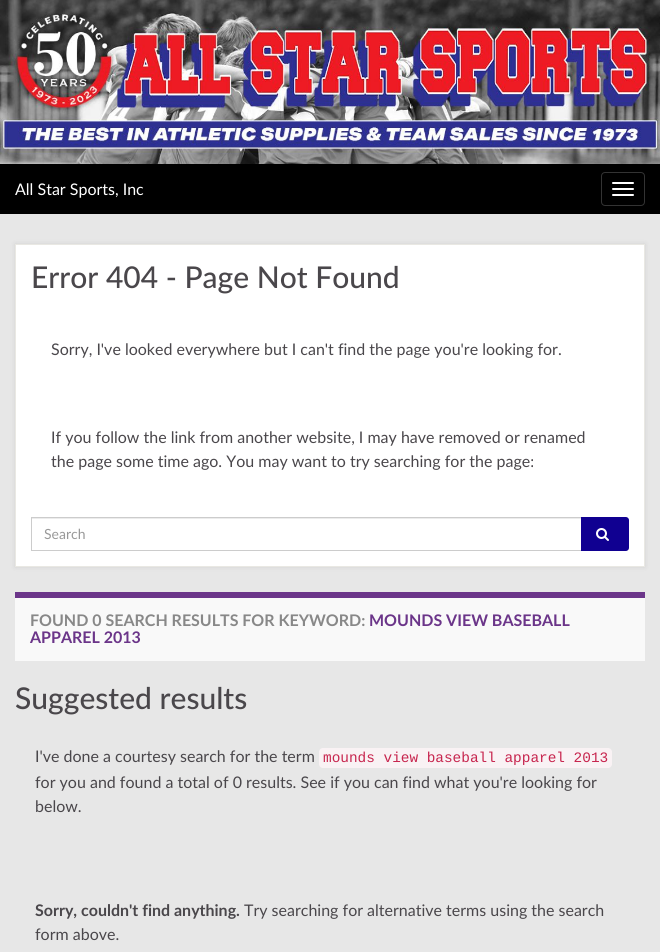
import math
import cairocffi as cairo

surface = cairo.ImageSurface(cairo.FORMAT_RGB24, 660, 952)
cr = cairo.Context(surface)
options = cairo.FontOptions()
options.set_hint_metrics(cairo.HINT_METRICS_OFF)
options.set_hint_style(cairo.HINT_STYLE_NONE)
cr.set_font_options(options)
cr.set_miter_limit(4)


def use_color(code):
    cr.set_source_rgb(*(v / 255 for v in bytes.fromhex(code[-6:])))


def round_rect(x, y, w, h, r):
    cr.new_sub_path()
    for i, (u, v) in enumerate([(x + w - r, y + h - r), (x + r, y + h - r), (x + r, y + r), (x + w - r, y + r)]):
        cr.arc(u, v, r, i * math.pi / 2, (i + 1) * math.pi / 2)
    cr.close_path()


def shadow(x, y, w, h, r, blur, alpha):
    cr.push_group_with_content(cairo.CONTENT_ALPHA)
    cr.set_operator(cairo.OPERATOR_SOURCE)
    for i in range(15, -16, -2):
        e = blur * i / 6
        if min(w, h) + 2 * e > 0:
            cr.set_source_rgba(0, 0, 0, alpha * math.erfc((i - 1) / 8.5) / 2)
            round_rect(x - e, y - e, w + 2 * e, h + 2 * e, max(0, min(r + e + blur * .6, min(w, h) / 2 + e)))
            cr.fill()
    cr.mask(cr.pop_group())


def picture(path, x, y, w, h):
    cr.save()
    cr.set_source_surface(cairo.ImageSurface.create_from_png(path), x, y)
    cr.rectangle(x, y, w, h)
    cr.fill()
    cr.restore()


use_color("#000000")
cr.paint()
picture("img1.png", 0, 0, 660, 164)
cr.select_font_face("Lato")
cr.set_font_size(16)
use_color("#ffffff")
cr.move_to(15, 195)
cr.show_text("All Star Sports, Inc")
round_rect(601.5, 172.5, 43, 33, 3.5)
use_color("#333333")
cr.set_line_width(1)
cr.stroke()
use_color("#ffffff")
round_rect(612, 182, 22, 2, 1)
cr.fill()
round_rect(612, 188, 22, 2, 1)
cr.fill()
round_rect(612, 194, 22, 2, 1)
cr.fill()
use_color("#e7e7e7")
cr.rectangle(0, 214, 660, 738)
cr.fill()
use_color("#000000")
shadow(15, 244, 630, 323, 0, 2.5, 0.1)
use_color("#ffffff")
cr.rectangle(15.5, 244.5, 629, 322)
cr.fill_preserve()
use_color("#e9e8e3")
cr.stroke()
cr.select_font_face("Lato Medium")
cr.set_font_size(30)
use_color("#4a474b")
cr.move_to(31, 288)
cr.show_text("Error 404 - Page Not Found")
cr.select_font_face("Lato")
cr.set_font_size(16)
cr.move_to(51, 355)
cr.show_text("Sorry, I've looked everywhere but I can't find the page you're looking for.")
cr.move_to(51, 443)
cr.show_text("If you follow the link from another website, I may have removed or renamed")
cr.move_to(51, 467)
cr.show_text("the page some time ago. You may want to try searching for the page:")
use_color("#ececec")
cr.rectangle(32, 518, 549, 1)
cr.fill()
cr.rectangle(31.5, 517.5, 550, 33)
use_color("#cccccc")
cr.stroke()
cr.set_font_size(14)
use_color("#999999")
cr.move_to(44, 539)
cr.show_text("Search")
use_color("#100091")
cr.new_path()
cr.move_to(581, 517)
cr.line_to(626, 517)
cr.curve_to(627.5, 517, 629, 518.5, 629, 520)
cr.line_to(629, 548)
cr.curve_to(629, 549.5, 627.5, 551, 626, 551)
cr.line_to(581, 551)
cr.close_path()
cr.fill()
picture("img2.png", 596, 528, 13, 13)
use_color("#f9f9f9")
cr.rectangle(15, 598, 630, 63)
cr.fill()
use_color("#6b3589")
cr.rectangle(15, 592, 630, 6)
cr.fill()
cr.select_font_face("Lato", cairo.FONT_SLANT_NORMAL, cairo.FONT_WEIGHT_BOLD)
cr.set_font_size(16)
use_color("#888888")
cr.move_to(30, 626)
cr.show_text("FOUND 0 SEARCH RESULTS FOR KEYWORD:")
use_color("#6b3589")
cr.move_to(369, 626)
cr.show_text("MOUNDS VIEW BASEBALL")
cr.move_to(30, 643)
cr.show_text("APPAREL 2013")
cr.select_font_face("Lato Medium")
cr.set_font_size(30)
use_color("#4a474b")
cr.move_to(15, 709)
cr.show_text("Suggested results")
cr.select_font_face("Lato")
cr.set_font_size(16)
cr.move_to(35, 762)
cr.show_text("I've done a courtesy search for the term")
use_color("#f9f2f4")
round_rect(319, 748, 293, 20, 4)
cr.fill()
cr.select_font_face("Liberation Mono")
cr.set_font_size(14.4)
use_color("#c7254e")
cr.move_to(323, 762)
cr.show_text("mounds view baseball apparel 2013")
cr.select_font_face("Lato")
cr.set_font_size(16)
use_color("#4a474b")
cr.move_to(35, 788)
cr.show_text("for you and found a total of 0 results. See if you can find what you're looking for")
cr.move_to(35, 812)
cr.show_text("below.")
cr.select_font_face("Lato", cairo.FONT_SLANT_NORMAL, cairo.FONT_WEIGHT_BOLD)
cr.move_to(35, 916)
cr.show_text("Sorry, couldn't find anything.")
cr.select_font_face("Lato")
cr.move_to(244, 916)
cr.show_text("Try searching for alternative terms using the search")
cr.move_to(35, 940)
cr.show_text("form above.")
surface.write_to_png("result.png")
